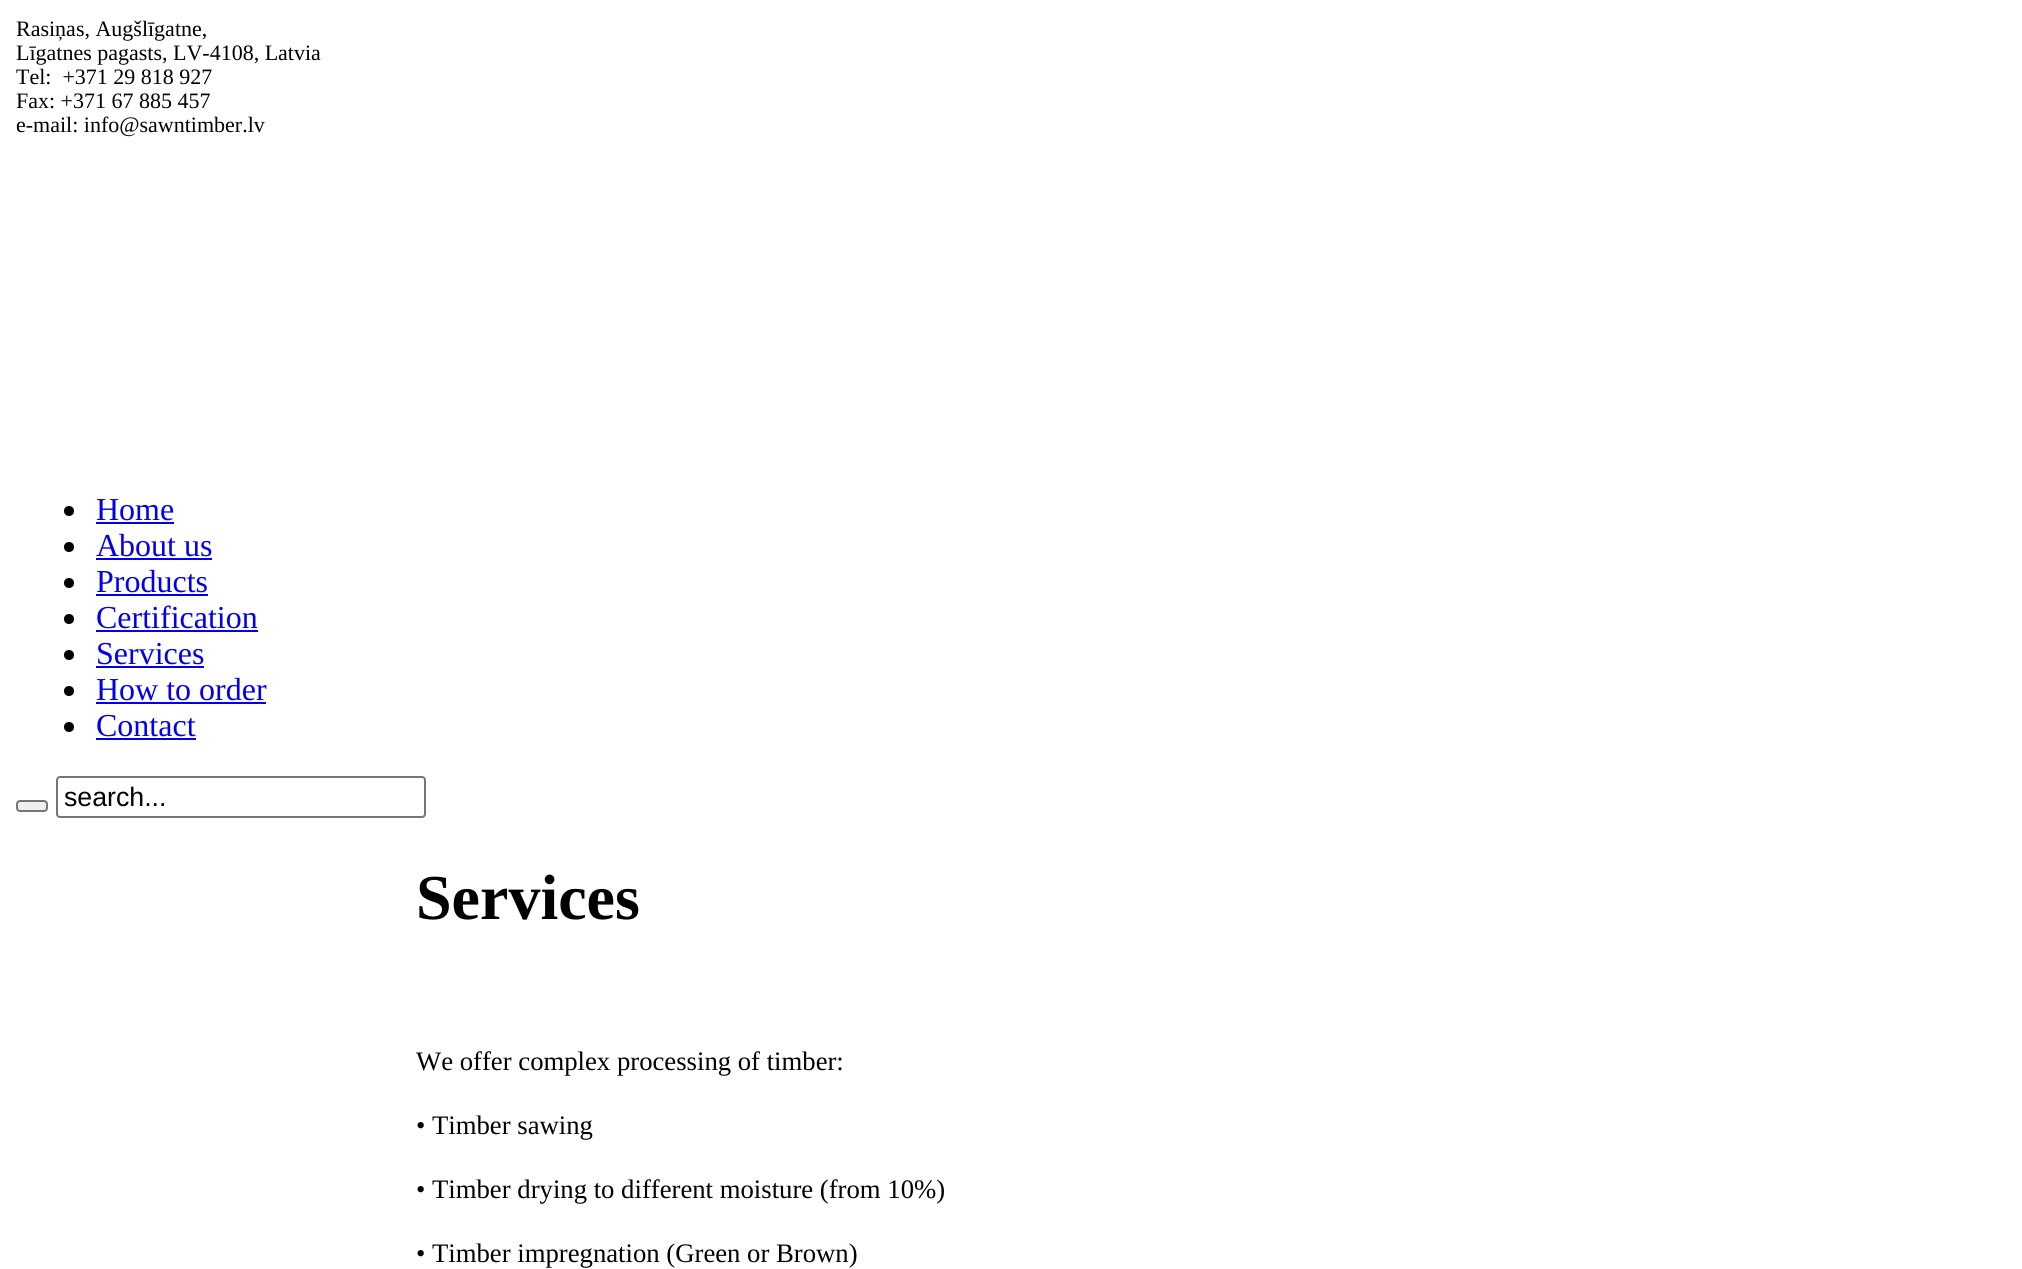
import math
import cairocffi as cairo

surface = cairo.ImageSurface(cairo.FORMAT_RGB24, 2022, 1269)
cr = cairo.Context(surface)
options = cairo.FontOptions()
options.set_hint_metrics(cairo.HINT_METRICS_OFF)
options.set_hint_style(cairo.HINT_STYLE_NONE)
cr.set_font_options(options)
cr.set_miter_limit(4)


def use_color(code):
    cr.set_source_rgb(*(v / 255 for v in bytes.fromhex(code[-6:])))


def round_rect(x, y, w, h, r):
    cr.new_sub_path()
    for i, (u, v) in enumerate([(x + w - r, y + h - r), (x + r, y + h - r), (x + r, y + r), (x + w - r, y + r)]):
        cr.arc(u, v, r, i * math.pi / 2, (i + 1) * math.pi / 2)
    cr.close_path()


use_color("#ffffff")
cr.paint()
cr.select_font_face("Liberation Serif")
cr.set_font_size(22)
use_color("#000000")
cr.move_to(16, 36)
cr.show_text("Rasiņas, Augšlīgatne,")
cr.move_to(16, 60)
cr.show_text("Līgatnes pagasts, LV-4108, Latvia")
cr.move_to(16, 84)
cr.show_text("Tel:  +371 29 818 927")
cr.move_to(16, 108)
cr.show_text("Fax: +371 67 885 457")
cr.move_to(16, 132)
cr.show_text("e-mail: info@sawntimber.lv")
cr.new_path()
cr.arc(69, 511, 5, 0, 2 * math.pi)
cr.fill()
cr.set_font_size(32)
use_color("#0000ee")
cr.move_to(96, 520)
cr.show_text("Home")
cr.rectangle(96, 522, 78, 2)
cr.fill()
use_color("#000000")
cr.arc(69, 547, 5, 0, 2 * math.pi)
cr.fill()
use_color("#0000ee")
cr.move_to(96, 556)
cr.show_text("About us")
cr.rectangle(96, 558, 116, 2)
cr.fill()
use_color("#000000")
cr.arc(69, 583, 5, 0, 2 * math.pi)
cr.fill()
use_color("#0000ee")
cr.move_to(96, 592)
cr.show_text("Products")
cr.rectangle(96, 594, 112, 2)
cr.fill()
use_color("#000000")
cr.arc(69, 619, 5, 0, 2 * math.pi)
cr.fill()
use_color("#0000ee")
cr.move_to(96, 628)
cr.show_text("Certification")
cr.rectangle(96, 630, 162, 2)
cr.fill()
use_color("#000000")
cr.arc(69, 655, 5, 0, 2 * math.pi)
cr.fill()
use_color("#0000ee")
cr.move_to(96, 664)
cr.show_text("Services")
cr.rectangle(96, 666, 108, 2)
cr.fill()
use_color("#000000")
cr.arc(69, 691, 5, 0, 2 * math.pi)
cr.fill()
use_color("#0000ee")
cr.move_to(96, 700)
cr.show_text("How to order")
cr.rectangle(96, 702, 170, 2)
cr.fill()
use_color("#000000")
cr.arc(69, 727, 5, 0, 2 * math.pi)
cr.fill()
use_color("#0000ee")
cr.move_to(96, 736)
cr.show_text("Contact")
cr.rectangle(96, 738, 100, 2)
cr.fill()
use_color("#efefef")
round_rect(17, 801, 30, 10, 3)
cr.fill_preserve()
use_color("#767676")
cr.stroke()
round_rect(57, 777, 368, 40, 3)
cr.stroke()
cr.select_font_face("Liberation Sans")
cr.set_font_size(26.7)
use_color("#000000")
cr.move_to(64, 806)
cr.show_text("search...")
cr.select_font_face("Liberation Serif", cairo.FONT_SLANT_NORMAL, cairo.FONT_WEIGHT_BOLD)
cr.set_font_size(64)
cr.move_to(416, 919)
cr.show_text("Services")
cr.select_font_face("Liberation Serif")
cr.set_font_size(26.7)
cr.move_to(416, 1070)
cr.show_text("We offer complex processing of timber:")
cr.move_to(416, 1134)
cr.show_text("• Timber sawing")
cr.move_to(416, 1198)
cr.show_text("• Timber drying to different moisture (from 10%)")
cr.move_to(416, 1262)
cr.show_text("• Timber impregnation (Green or Brown)")
surface.write_to_png("result.png")
